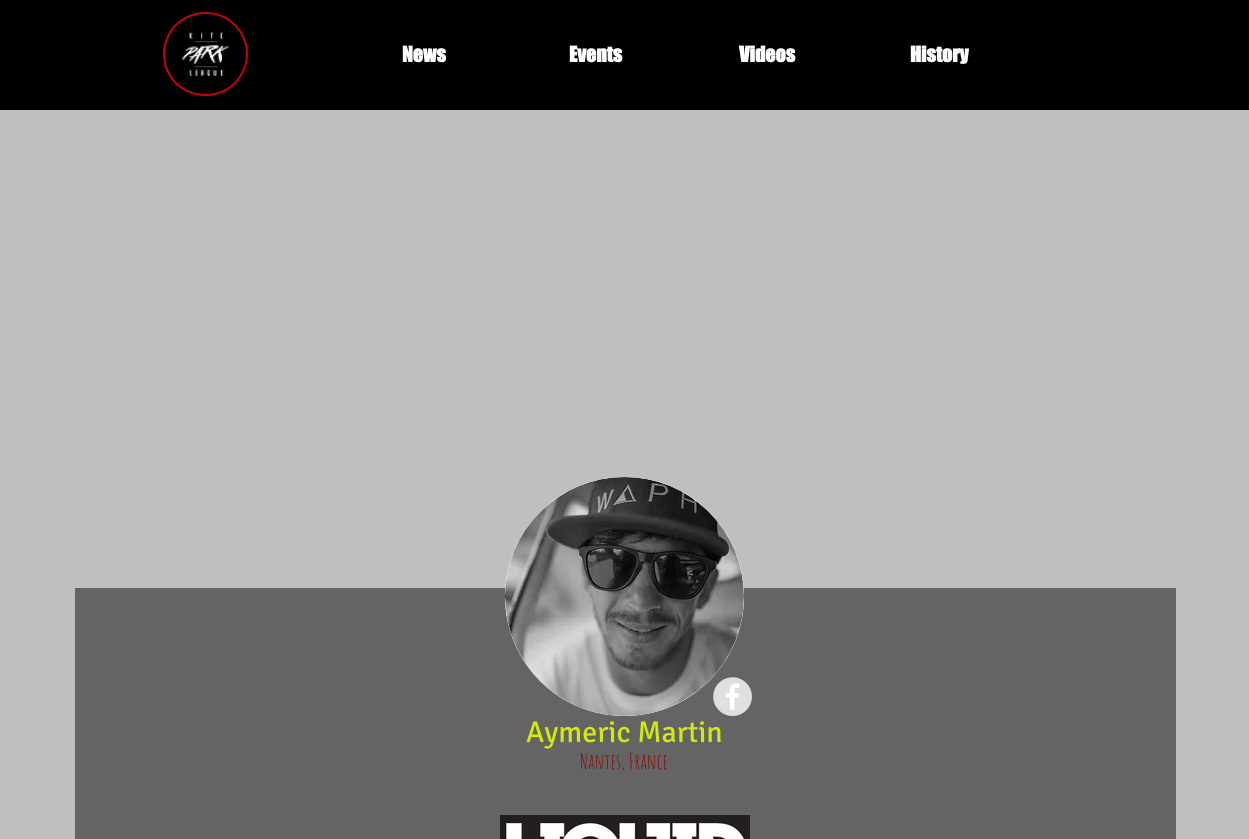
import math
import cairocffi as cairo

surface = cairo.ImageSurface(cairo.FORMAT_RGB24, 1249, 839)
cr = cairo.Context(surface)
options = cairo.FontOptions()
options.set_hint_metrics(cairo.HINT_METRICS_OFF)
options.set_hint_style(cairo.HINT_STYLE_NONE)
cr.set_font_options(options)
cr.set_miter_limit(4)


def use_color(code):
    cr.set_source_rgb(*(v / 255 for v in bytes.fromhex(code[-6:])))


def round_rect(x, y, w, h, r):
    cr.new_sub_path()
    for i, (u, v) in enumerate([(x + w - r, y + h - r), (x + r, y + h - r), (x + r, y + r), (x + w - r, y + r)]):
        cr.arc(u, v, r, i * math.pi / 2, (i + 1) * math.pi / 2)
    cr.close_path()


def shadow(x, y, w, h, r, blur, alpha):
    cr.push_group_with_content(cairo.CONTENT_ALPHA)
    cr.set_operator(cairo.OPERATOR_SOURCE)
    for i in range(15, -16, -2):
        e = blur * i / 6
        if min(w, h) + 2 * e > 0:
            cr.set_source_rgba(0, 0, 0, alpha * math.erfc((i - 1) / 8.5) / 2)
            round_rect(x - e, y - e, w + 2 * e, h + 2 * e, max(0, min(r + e + blur * .6, min(w, h) / 2 + e)))
            cr.fill()
    cr.mask(cr.pop_group())


def picture(path, x, y, w, h):
    cr.save()
    cr.set_source_surface(cairo.ImageSurface.create_from_png(path), x, y)
    cr.rectangle(x, y, w, h)
    cr.fill()
    cr.restore()


use_color("#bfbfbf")
cr.paint()
use_color("#000000")
cr.rectangle(0, 0, 1249, 110)
cr.fill()
round_rect(164, 13, 83, 82, 41)
use_color("#c70404")
cr.stroke()
cr.save()
cr.set_fill_rule(cairo.FILL_RULE_EVEN_ODD)
cr.new_path()
cr.move_to(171, 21)
cr.line_to(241, 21)
cr.line_to(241, 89)
cr.line_to(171, 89)
cr.close_path()
cr.move_to(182, 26)
cr.line_to(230, 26)
cr.curve_to(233, 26, 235, 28, 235, 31)
cr.line_to(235, 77)
cr.curve_to(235, 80, 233, 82, 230, 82)
cr.line_to(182, 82)
cr.curve_to(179, 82, 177, 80, 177, 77)
cr.line_to(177, 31)
cr.curve_to(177, 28, 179, 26, 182, 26)
cr.close_path()
cr.clip()
use_color("#000000")
shadow(177, 27, 58, 56, 5, 1.5, 0.5)
cr.restore()
picture("img1.png", 182, 32, 48, 44)
cr.select_font_face("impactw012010", cairo.FONT_SLANT_NORMAL, cairo.FONT_WEIGHT_BOLD)
cr.set_font_size(20)
use_color("#ffffff")
cr.move_to(402, 62)
cr.show_text("News")
cr.move_to(569, 62)
cr.show_text("Events")
cr.move_to(739, 62)
cr.show_text("Videos")
cr.move_to(910, 62)
cr.show_text("History")
use_color("#646464")
cr.rectangle(75, 588, 1101, 251)
cr.fill()
picture("img3.png", 713, 677, 39, 39)
use_color("#ffffff")
cr.arc(624.5, 596.5, 119.5, 0, 2 * math.pi)
cr.fill()
picture("img2.png", 505, 477, 239, 239)
cr.select_font_face("Signika")
cr.set_font_size(30)
use_color("#d3ea07")
cr.move_to(526, 742)
cr.show_text("Aymeric Martin")
cr.select_font_face("Amatic SC")
cr.set_font_size(21)
use_color("#8b0000")
cr.move_to(580, 769)
cr.show_text("Nantes, France")
picture("img4.png", 500, 815, 250, 24)
surface.write_to_png("result.png")
